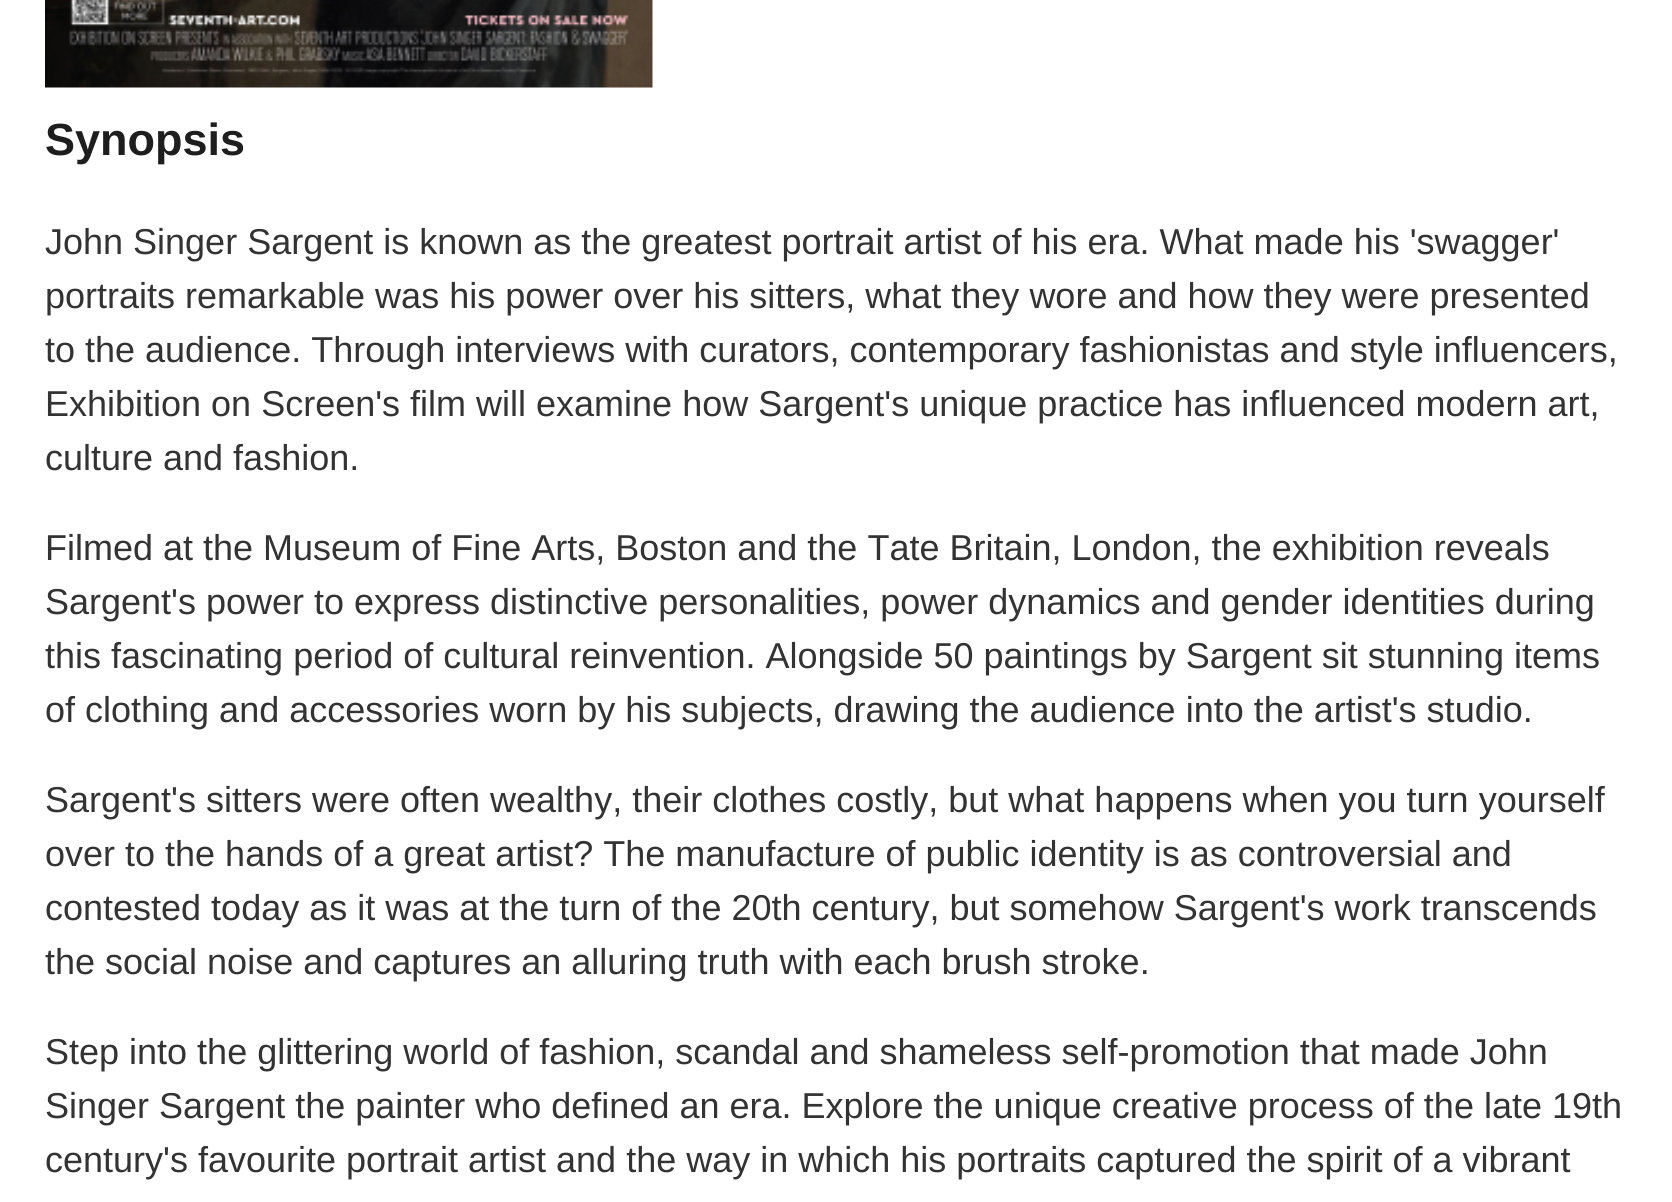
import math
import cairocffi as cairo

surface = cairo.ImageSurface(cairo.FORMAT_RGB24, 1672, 1202)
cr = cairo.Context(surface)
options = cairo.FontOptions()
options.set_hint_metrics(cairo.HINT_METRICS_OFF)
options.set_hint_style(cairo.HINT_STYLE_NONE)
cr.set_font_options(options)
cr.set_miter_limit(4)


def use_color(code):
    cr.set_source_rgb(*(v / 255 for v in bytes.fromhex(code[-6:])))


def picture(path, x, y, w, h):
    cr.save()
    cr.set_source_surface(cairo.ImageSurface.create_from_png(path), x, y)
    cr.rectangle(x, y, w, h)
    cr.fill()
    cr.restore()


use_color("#ffffff")
cr.paint()
picture("img1.png", 45, 0, 608, 88)
cr.select_font_face("Liberation Sans", cairo.FONT_SLANT_NORMAL, cairo.FONT_WEIGHT_BOLD)
cr.set_font_size(45)
use_color("#1e1e1e")
cr.move_to(45, 155)
cr.show_text("Synopsis")
cr.select_font_face("Liberation Sans")
cr.set_font_size(36)
use_color("#333333")
cr.move_to(45, 254)
cr.show_text("John Singer Sargent is known as the greatest portrait artist of his era. What made his 'swagger'")
cr.move_to(45, 308)
cr.show_text("portraits remarkable was his power over his sitters, what they wore and how they were presented")
cr.move_to(45, 362)
cr.show_text("to the audience. Through interviews with curators, contemporary fashionistas and style influencers,")
cr.move_to(45, 416)
cr.show_text("Exhibition on Screen's film will examine how Sargent's unique practice has influenced modern art,")
cr.move_to(45, 470)
cr.show_text("culture and fashion.")
cr.move_to(45, 560)
cr.show_text("Filmed at the Museum of Fine Arts, Boston and the Tate Britain, London, the exhibition reveals")
cr.move_to(45, 614)
cr.show_text("Sargent's power to express distinctive personalities, power dynamics and gender identities during")
cr.move_to(45, 668)
cr.show_text("this fascinating period of cultural reinvention. Alongside 50 paintings by Sargent sit stunning items")
cr.move_to(45, 722)
cr.show_text("of clothing and accessories worn by his subjects, drawing the audience into the artist's studio.")
cr.move_to(45, 812)
cr.show_text("Sargent's sitters were often wealthy, their clothes costly, but what happens when you turn yourself")
cr.move_to(45, 866)
cr.show_text("over to the hands of a great artist? The manufacture of public identity is as controversial and")
cr.move_to(45, 920)
cr.show_text("contested today as it was at the turn of the 20th century, but somehow Sargent's work transcends")
cr.move_to(45, 974)
cr.show_text("the social noise and captures an alluring truth with each brush stroke.")
cr.move_to(45, 1064)
cr.show_text("Step into the glittering world of fashion, scandal and shameless self-promotion that made John")
cr.move_to(45, 1118)
cr.show_text("Singer Sargent the painter who defined an era. Explore the unique creative process of the late 19th")
cr.move_to(45, 1172)
cr.show_text("century's favourite portrait artist and the way in which his portraits captured the spirit of a vibrant")
surface.write_to_png("result.png")
